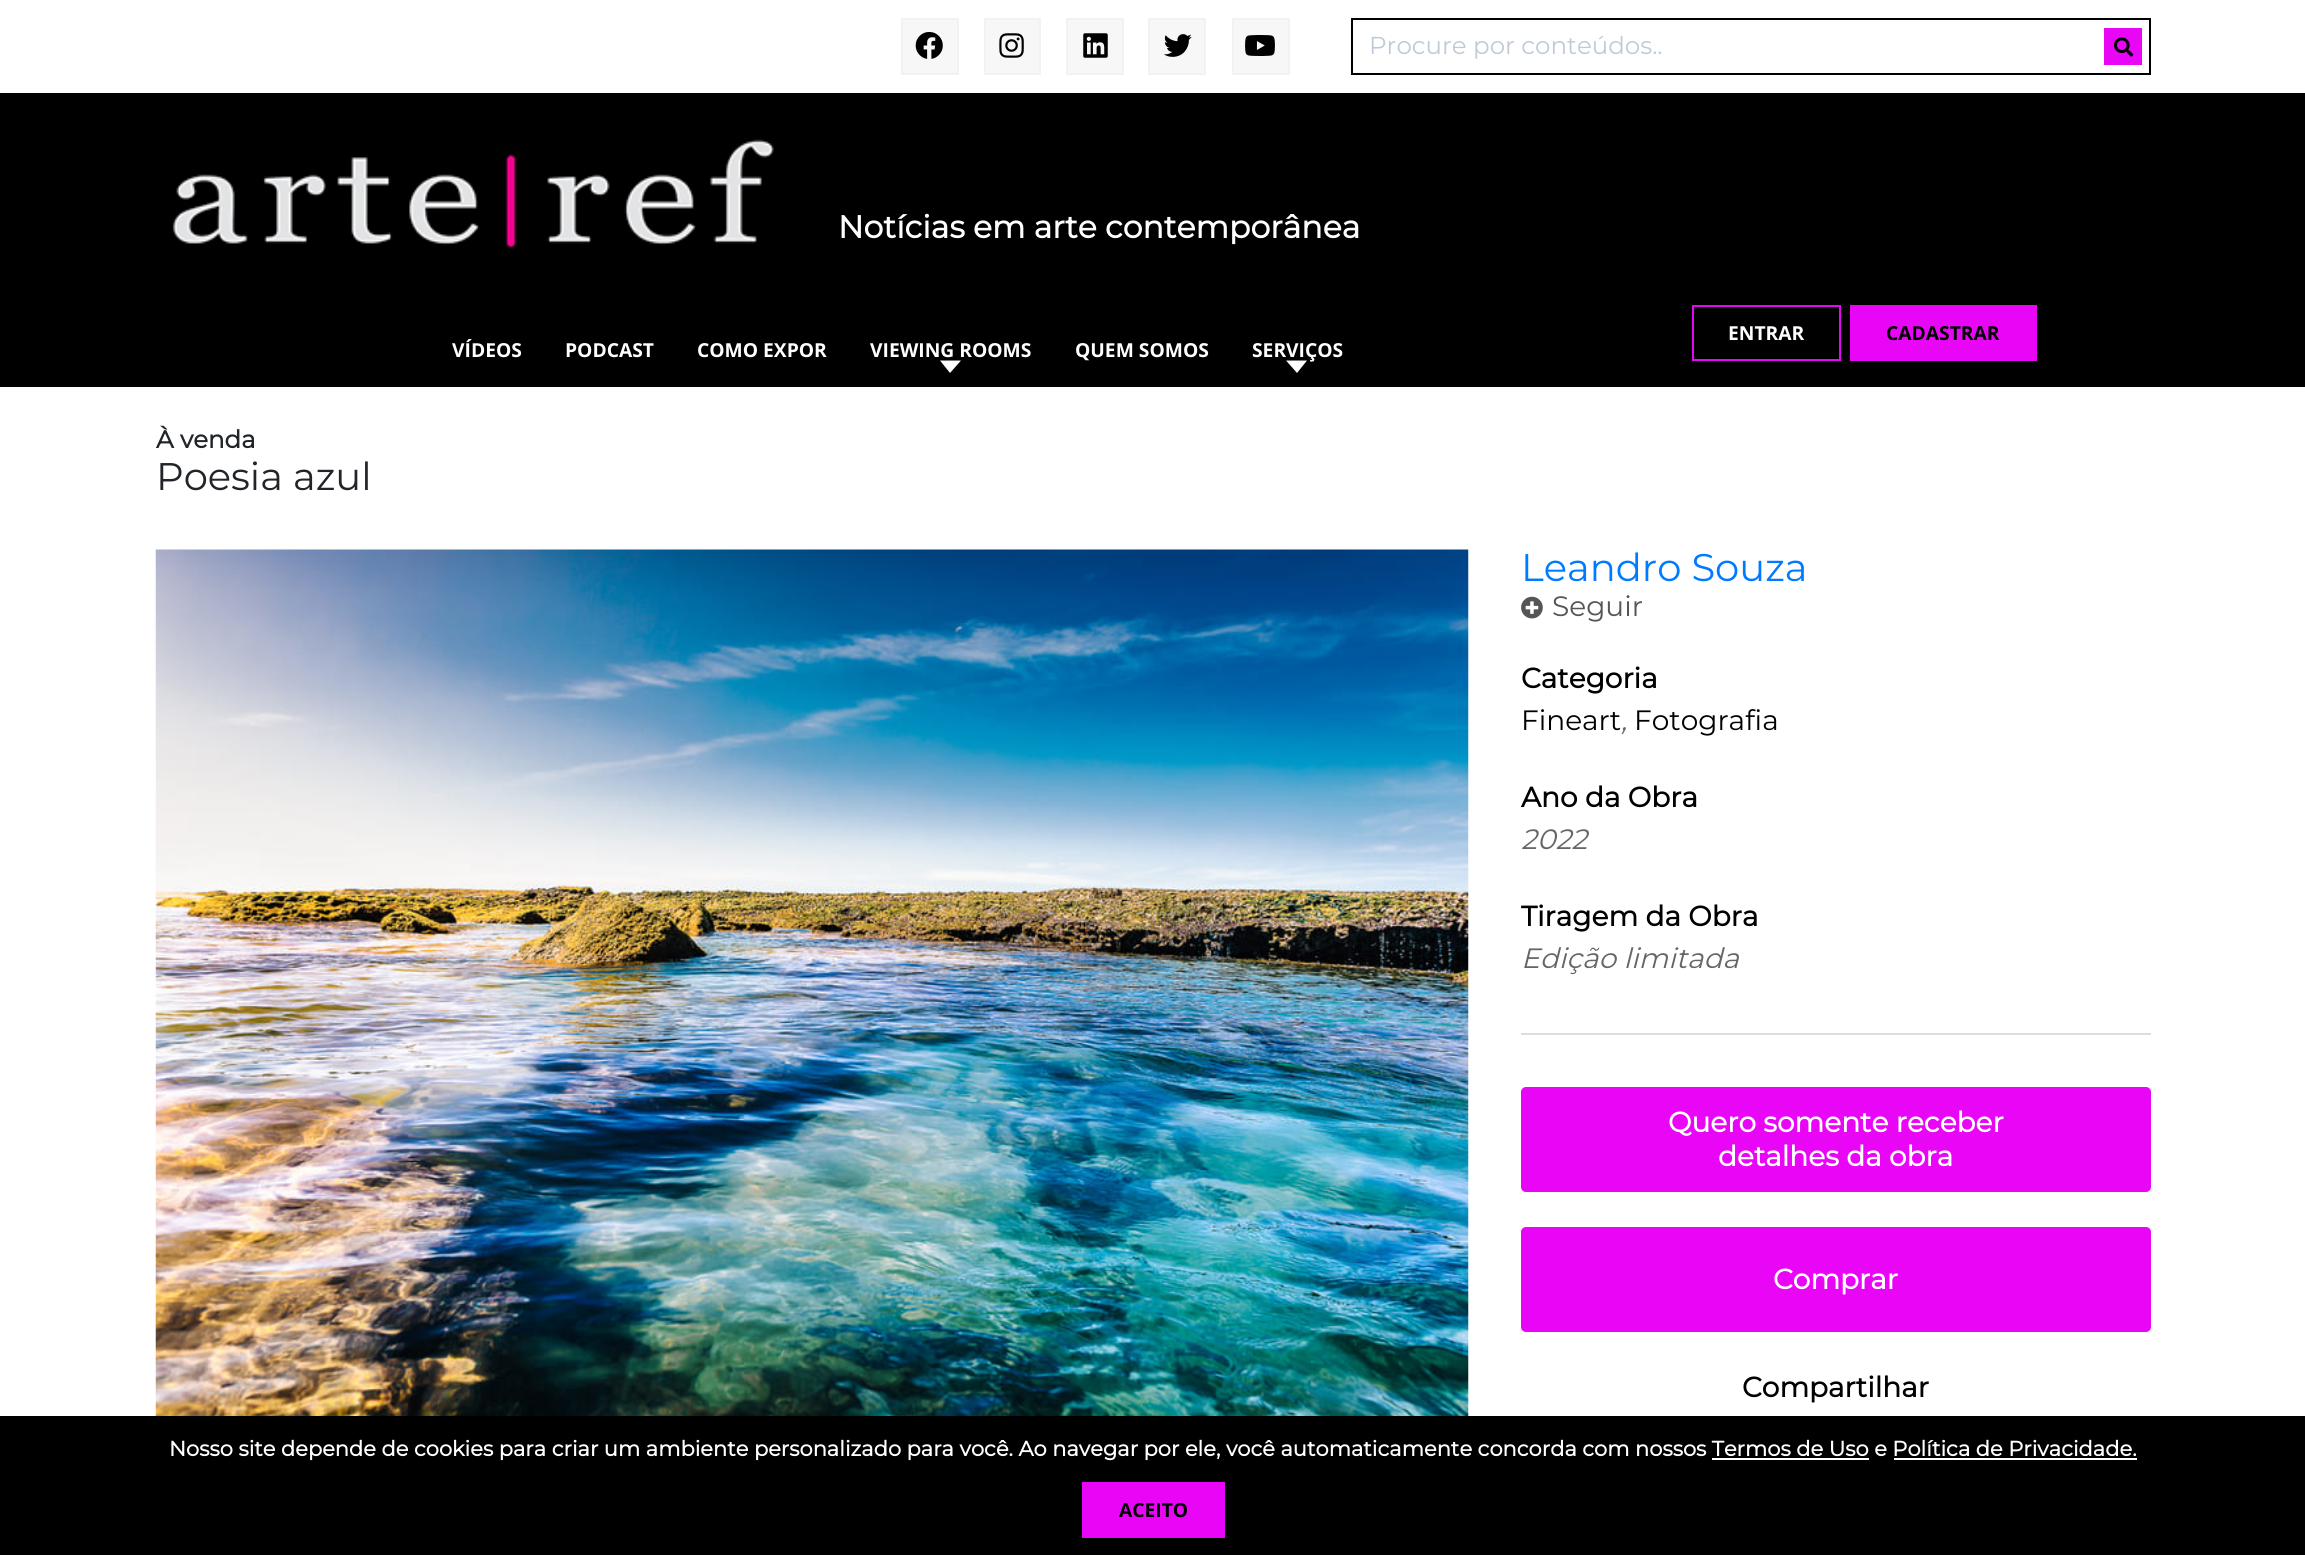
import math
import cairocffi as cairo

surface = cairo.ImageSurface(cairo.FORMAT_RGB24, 2305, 1555)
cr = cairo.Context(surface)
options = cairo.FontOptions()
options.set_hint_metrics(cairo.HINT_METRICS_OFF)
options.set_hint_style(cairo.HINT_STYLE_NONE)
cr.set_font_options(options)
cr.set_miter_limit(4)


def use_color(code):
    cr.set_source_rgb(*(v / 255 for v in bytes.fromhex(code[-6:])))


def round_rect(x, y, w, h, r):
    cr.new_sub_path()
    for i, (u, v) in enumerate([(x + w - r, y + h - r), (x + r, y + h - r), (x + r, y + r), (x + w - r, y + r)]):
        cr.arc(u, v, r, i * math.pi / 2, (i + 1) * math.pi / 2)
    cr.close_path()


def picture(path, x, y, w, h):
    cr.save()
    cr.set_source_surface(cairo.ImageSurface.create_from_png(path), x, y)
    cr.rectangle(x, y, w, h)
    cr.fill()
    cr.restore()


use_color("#ffffff")
cr.paint()
use_color("#000000")
cr.rectangle(0, 93, 2305, 294)
cr.fill()
use_color("#f7f7f7")
cr.rectangle(902, 19, 56, 55)
cr.fill_preserve()
use_color("#f2f2f2")
cr.stroke()
picture("img1.png", 915, 31, 28, 28)
use_color("#f7f7f7")
cr.rectangle(985, 19, 55, 55)
cr.fill_preserve()
use_color("#f2f2f2")
cr.stroke()
picture("img2.png", 999, 33, 25, 25)
use_color("#f7f7f7")
cr.rectangle(1067, 19, 56, 55)
cr.fill_preserve()
use_color("#f2f2f2")
cr.stroke()
picture("img3.png", 1083, 33, 25, 25)
use_color("#f7f7f7")
cr.rectangle(1149, 19, 56, 55)
cr.fill_preserve()
use_color("#f2f2f2")
cr.stroke()
picture("img4.png", 1164, 34, 28, 23)
use_color("#f7f7f7")
cr.rectangle(1233, 19, 56, 55)
cr.fill_preserve()
use_color("#f2f2f2")
cr.stroke()
picture("img5.png", 1245, 35, 30, 21)
cr.rectangle(1352, 19, 798, 55)
use_color("#000000")
cr.stroke()
cr.select_font_face("Montserrat Thin")
cr.set_font_size(24.5)
use_color("#bfcad8")
cr.move_to(1369, 54)
cr.show_text("Procure por conteúdos..")
use_color("#e906f7")
cr.rectangle(2104, 28, 38, 37)
cr.fill()
picture("img6.png", 2114, 37, 20, 20)
picture("img7.png", 172, 139, 602, 113)
cr.select_font_face("Montserrat", cairo.FONT_SLANT_NORMAL, cairo.FONT_WEIGHT_BOLD)
cr.set_font_size(31.5)
use_color("#ffffff")
cr.move_to(838, 238)
cr.show_text("Notícias em arte contemporânea")
cr.rectangle(1693, 306, 147, 54)
use_color("#e906f7")
cr.stroke()
cr.select_font_face("Open Sans", cairo.FONT_SLANT_NORMAL, cairo.FONT_WEIGHT_BOLD)
cr.set_font_size(19.25)
use_color("#ffffff")
cr.move_to(1728, 340)
cr.show_text("ENTRAR")
use_color("#e906f7")
cr.rectangle(1850, 305, 187, 56)
cr.fill()
use_color("#000000")
cr.move_to(1886, 340)
cr.show_text("CADASTRAR")
use_color("#ffffff")
cr.move_to(452, 357)
cr.show_text("VÍDEOS")
cr.move_to(565, 357)
cr.show_text("PODCAST")
cr.move_to(697, 357)
cr.show_text("COMO EXPOR")
cr.move_to(870, 357)
cr.show_text("VIEWING ROOMS")
cr.new_path()
cr.move_to(940, 360.5)
cr.line_to(961, 360.5)
cr.line_to(950, 373)
cr.close_path()
cr.fill()
cr.move_to(1075, 357)
cr.show_text("QUEM SOMOS")
cr.move_to(1252, 357)
cr.show_text("SERVIÇOS")
cr.new_path()
cr.move_to(1286, 360.5)
cr.line_to(1307, 360.5)
cr.line_to(1297, 373)
cr.close_path()
cr.fill()
cr.select_font_face("Montserrat", cairo.FONT_SLANT_NORMAL, cairo.FONT_WEIGHT_BOLD)
cr.set_font_size(24.5)
use_color("#212529")
cr.move_to(156, 448)
cr.show_text("À venda")
cr.select_font_face("Montserrat Thin")
cr.set_font_size(38.5)
cr.move_to(156, 490)
cr.show_text("Poesia azul")
picture("img8.png", 155, 549, 1314, 867)
use_color("#007bff")
cr.move_to(1521, 581)
cr.show_text("Leandro Souza")
picture("img9.png", 1521, 596, 22, 23)
cr.set_font_size(28)
use_color("#555555")
cr.move_to(1552, 616)
cr.show_text("Seguir")
cr.select_font_face("Montserrat", cairo.FONT_SLANT_NORMAL, cairo.FONT_WEIGHT_BOLD)
use_color("#000000")
cr.move_to(1521, 688)
cr.show_text("Categoria")
cr.select_font_face("Montserrat Thin")
cr.move_to(1521, 730)
cr.show_text("Fineart")
cr.select_font_face("Montserrat Thin", cairo.FONT_SLANT_ITALIC)
use_color("#666666")
cr.move_to(1621, 730)
cr.show_text(",")
cr.select_font_face("Montserrat Thin")
use_color("#000000")
cr.move_to(1634, 730)
cr.show_text("Fotografia")
cr.select_font_face("Montserrat", cairo.FONT_SLANT_NORMAL, cairo.FONT_WEIGHT_BOLD)
cr.move_to(1521, 807)
cr.show_text("Ano da Obra")
cr.select_font_face("Montserrat Thin", cairo.FONT_SLANT_ITALIC)
use_color("#666666")
cr.move_to(1521, 849)
cr.show_text("2022")
cr.select_font_face("Montserrat", cairo.FONT_SLANT_NORMAL, cairo.FONT_WEIGHT_BOLD)
use_color("#000000")
cr.move_to(1521, 926)
cr.show_text("Tiragem da Obra")
cr.select_font_face("Montserrat Thin", cairo.FONT_SLANT_ITALIC)
use_color("#666666")
cr.move_to(1521, 968)
cr.show_text("Edição limitada")
use_color("#dddddd")
cr.rectangle(1521, 1033, 630, 2)
cr.fill()
use_color("#e906f7")
round_rect(1521, 1087, 630, 105, 5)
cr.fill()
cr.select_font_face("Montserrat", cairo.FONT_SLANT_NORMAL, cairo.FONT_WEIGHT_BOLD)
use_color("#ffffff")
cr.move_to(1668, 1132)
cr.show_text("Quero somente receber")
cr.move_to(1718, 1166)
cr.show_text("detalhes da obra")
use_color("#e906f7")
round_rect(1521, 1227, 630, 105, 5)
cr.fill()
use_color("#ffffff")
cr.move_to(1773, 1289)
cr.show_text("Comprar")
use_color("#000000")
cr.move_to(1742, 1397)
cr.show_text("Compartilhar")
cr.rectangle(0, 1416, 2305, 139)
cr.fill()
cr.set_font_size(21)
use_color("#ffffff")
cr.move_to(169, 1456)
cr.show_text("Nosso site depende de cookies para criar um ambiente personalizado para você. Ao navegar por ele, você automaticamente concorda com nossos Termos de Uso e Política de Privacidade.")
cr.rectangle(1712, 1458, 157, 2)
cr.fill()
cr.rectangle(1894, 1458, 243, 2)
cr.fill()
use_color("#e906f7")
cr.rectangle(1082, 1482, 143, 56)
cr.fill()
cr.select_font_face("Open Sans", cairo.FONT_SLANT_NORMAL, cairo.FONT_WEIGHT_BOLD)
cr.set_font_size(19.25)
use_color("#000000")
cr.move_to(1119, 1517)
cr.show_text("ACEITO")
surface.write_to_png("result.png")
